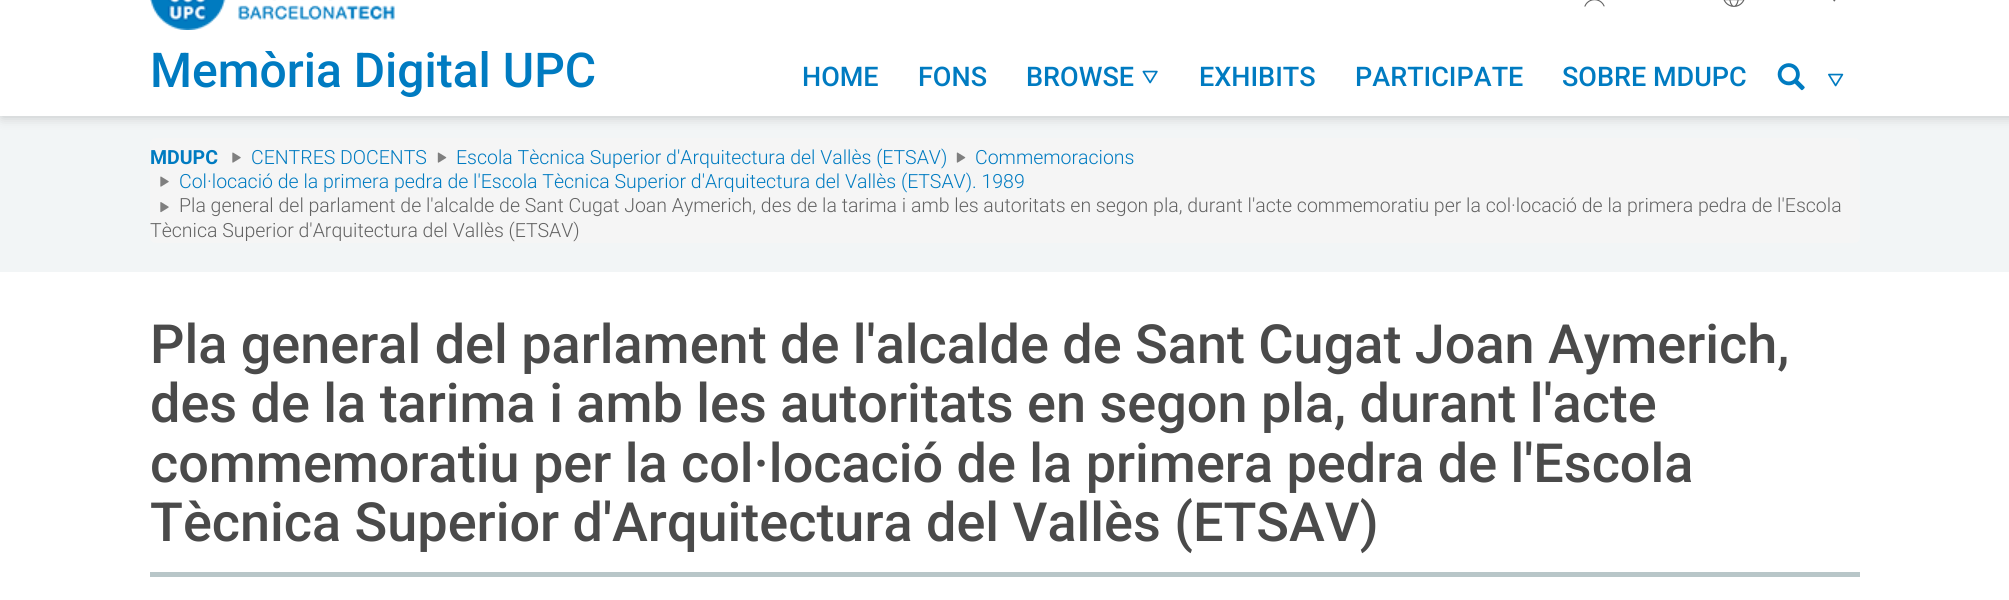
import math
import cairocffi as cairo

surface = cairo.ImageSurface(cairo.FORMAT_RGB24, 2009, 600)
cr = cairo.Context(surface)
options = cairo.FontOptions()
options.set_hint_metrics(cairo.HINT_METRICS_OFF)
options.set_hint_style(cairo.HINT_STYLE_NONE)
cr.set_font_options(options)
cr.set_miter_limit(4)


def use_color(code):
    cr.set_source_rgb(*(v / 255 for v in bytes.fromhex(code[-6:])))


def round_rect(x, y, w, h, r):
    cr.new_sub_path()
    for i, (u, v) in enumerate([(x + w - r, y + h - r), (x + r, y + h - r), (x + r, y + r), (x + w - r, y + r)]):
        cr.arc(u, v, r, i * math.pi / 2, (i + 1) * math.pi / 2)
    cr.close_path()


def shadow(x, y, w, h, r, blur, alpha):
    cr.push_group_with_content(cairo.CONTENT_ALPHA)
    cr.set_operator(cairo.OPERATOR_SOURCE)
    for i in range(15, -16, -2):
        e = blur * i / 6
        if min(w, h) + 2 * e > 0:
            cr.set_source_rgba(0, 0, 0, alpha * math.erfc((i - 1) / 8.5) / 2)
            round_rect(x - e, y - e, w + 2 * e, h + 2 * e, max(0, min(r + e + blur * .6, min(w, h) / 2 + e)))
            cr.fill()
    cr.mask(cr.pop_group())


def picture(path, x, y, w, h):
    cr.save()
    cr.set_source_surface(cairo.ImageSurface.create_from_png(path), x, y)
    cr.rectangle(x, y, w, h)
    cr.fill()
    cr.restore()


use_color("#ffffff")
cr.paint()
use_color("#f2f5f6")
cr.rectangle(0, 116, 2009, 156)
cr.fill()
use_color("#000000")
shadow(2, -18, 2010, 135, 0, 6, 0.2)
use_color("#ffffff")
cr.rectangle(0, 0, 2009, 116)
cr.fill()
picture("img1.png", 150, 0, 245, 30)
cr.select_font_face("Roboto Medium")
cr.set_font_size(48)
use_color("#007bc1")
cr.move_to(150, 87)
cr.show_text("Memòria Digital UPC")
picture("img2.png", 1584, 0, 21, 7)
picture("img3.png", 1723, 0, 22, 7)
picture("img4.png", 1833, 0, 3, 2)
cr.set_font_size(27)
cr.move_to(802, 86)
cr.show_text("HOME")
cr.move_to(918, 86)
cr.show_text("FONS")
cr.move_to(1026, 86)
cr.show_text("BROWSE")
picture("img5.png", 1142, 70, 16, 14)
cr.move_to(1199, 86)
cr.show_text("EXHIBITS")
cr.move_to(1355, 86)
cr.show_text("PARTICIPATE")
cr.move_to(1562, 86)
cr.show_text("SOBRE MDUPC")
picture("img6.png", 1777, 63, 28, 28)
picture("img7.png", 1828, 73, 16, 14)
use_color("#f5f5f5")
round_rect(150, 138, 1710, 105, 6)
cr.fill()
cr.select_font_face("Roboto", cairo.FONT_SLANT_NORMAL, cairo.FONT_WEIGHT_BOLD)
cr.set_font_size(19.5)
use_color("#007bc1")
cr.move_to(150, 164)
cr.show_text("MDUPC")
picture("img8.png", 232, 152, 9, 11)
cr.select_font_face("Roboto Light")
cr.move_to(251, 164)
cr.show_text("CENTRES DOCENTS")
picture("img9.png", 437, 152, 10, 11)
cr.move_to(456, 164)
cr.show_text("Escola Tècnica Superior d'Arquitectura del Vallès (ETSAV)")
picture("img9.png", 956, 152, 10, 11)
cr.move_to(975, 164)
cr.show_text("Commemoracions")
picture("img8.png", 160, 176, 9, 11)
cr.move_to(179, 188)
cr.show_text("Col·locació de la primera pedra de l'Escola Tècnica Superior d'Arquitectura del Vallès (ETSAV). 1989")
picture("img10.png", 160, 202, 9, 11)
use_color("#636363")
cr.move_to(179, 212)
cr.show_text("Pla general del parlament de l'alcalde de Sant Cugat Joan Aymerich, des de la tarima i amb les autoritats en segon pla, durant l'acte commemoratiu per la col·locació de la primera pedra de l'Escola")
cr.move_to(150, 237)
cr.show_text("Tècnica Superior d'Arquitectura del Vallès (ETSAV)")
use_color("#b8c6c8")
cr.rectangle(150, 572, 1710, 5)
cr.fill()
cr.select_font_face("Roboto Medium")
cr.set_font_size(54)
use_color("#4a4a4a")
cr.move_to(150, 363)
cr.show_text("Pla general del parlament de l'alcalde de Sant Cugat Joan Aymerich,")
cr.move_to(150, 422)
cr.show_text("des de la tarima i amb les autoritats en segon pla, durant l'acte")
cr.move_to(150, 482)
cr.show_text("commemoratiu per la col·locació de la primera pedra de l'Escola")
cr.move_to(150, 541)
cr.show_text("Tècnica Superior d'Arquitectura del Vallès (ETSAV)")
surface.write_to_png("result.png")
